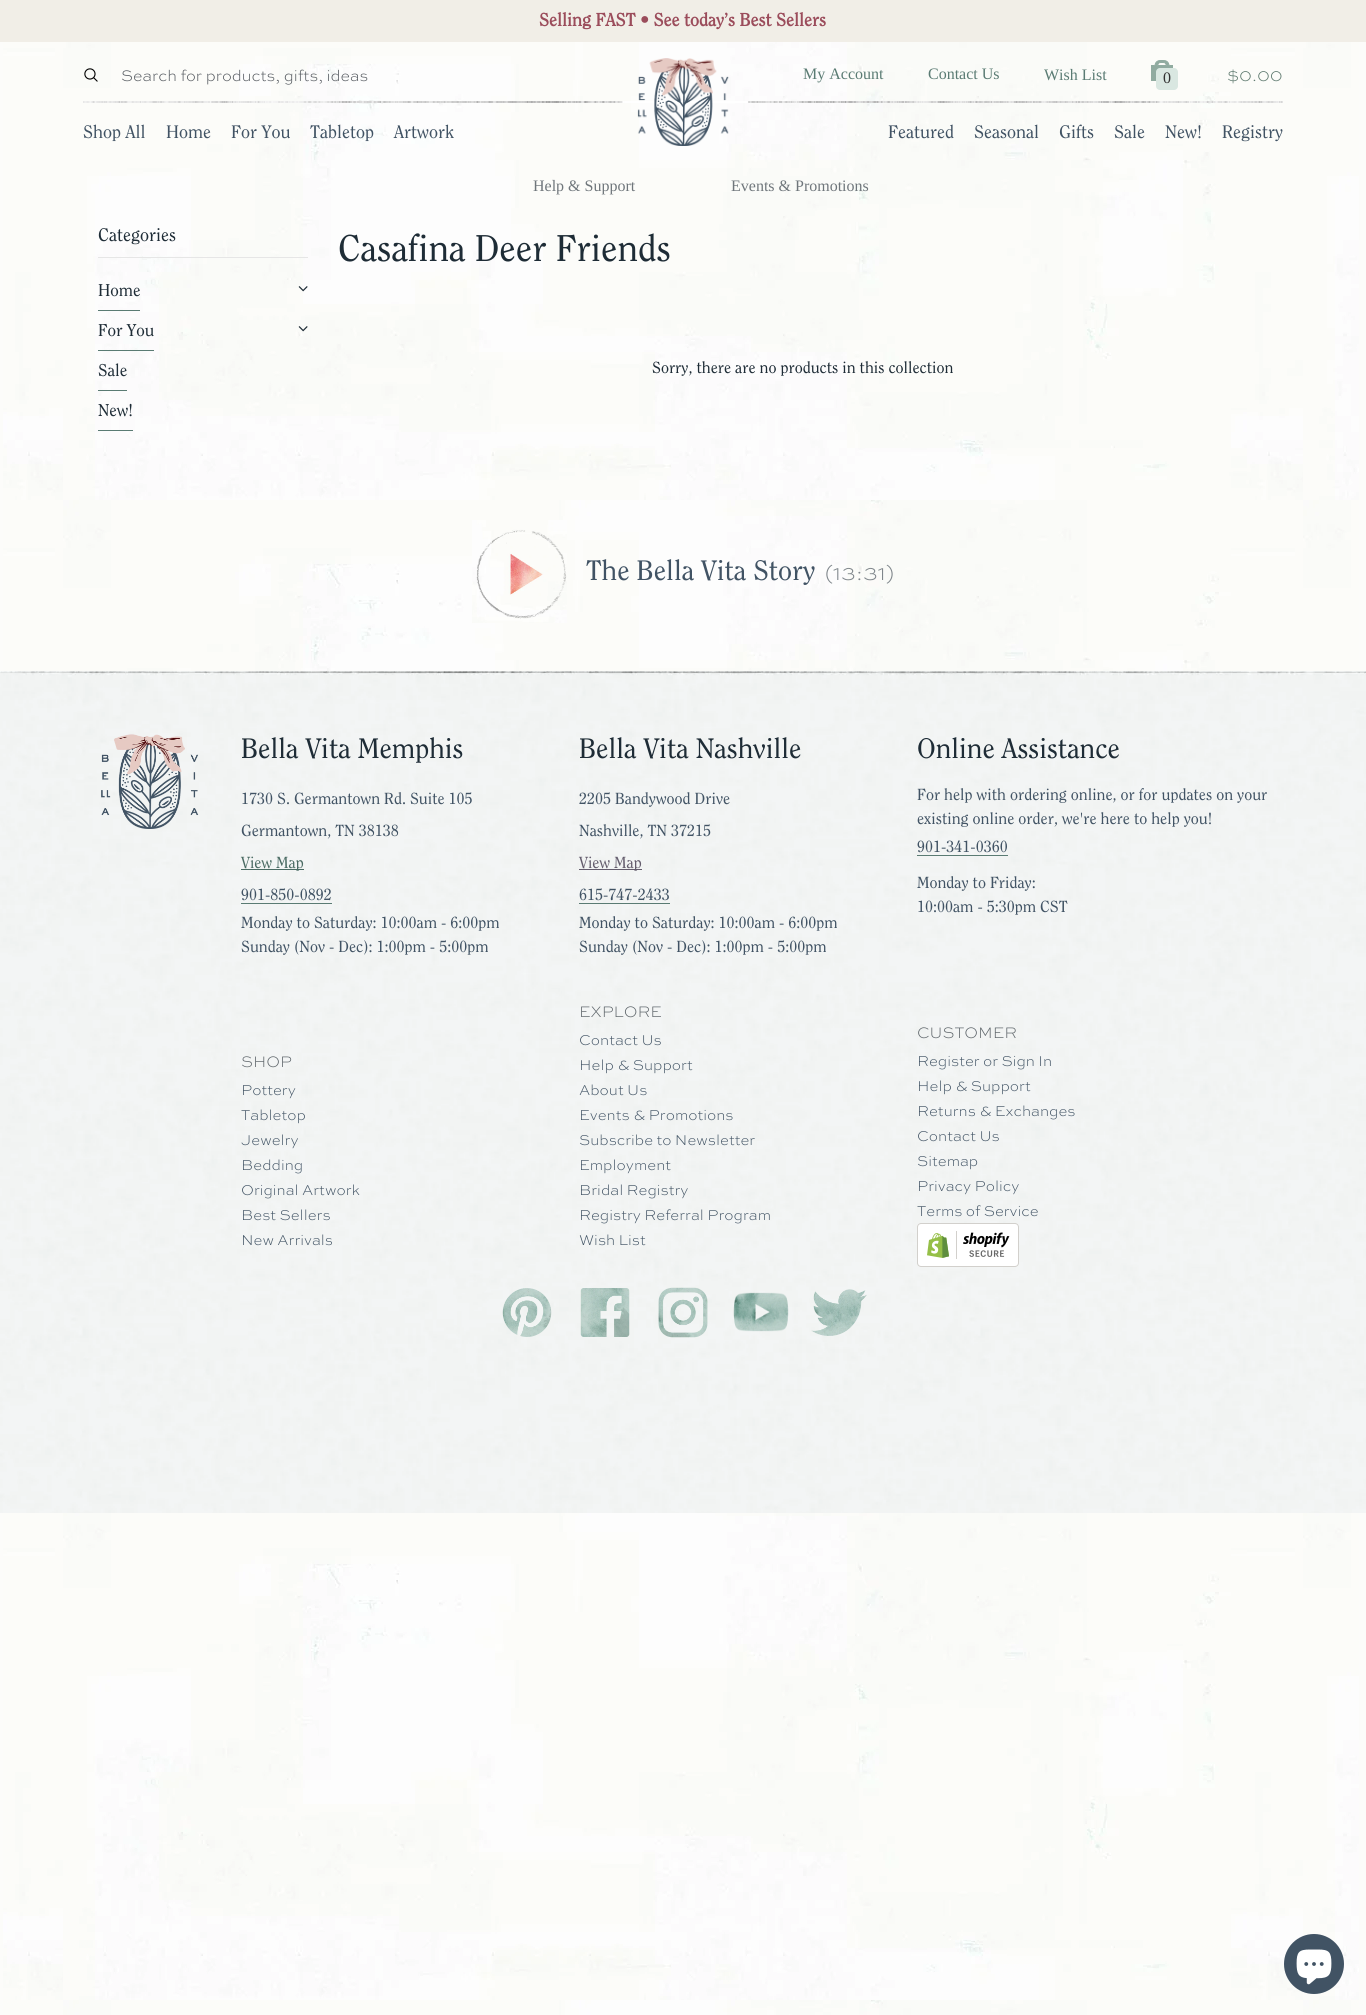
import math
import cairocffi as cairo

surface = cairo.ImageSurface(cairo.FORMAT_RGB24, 1366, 2015)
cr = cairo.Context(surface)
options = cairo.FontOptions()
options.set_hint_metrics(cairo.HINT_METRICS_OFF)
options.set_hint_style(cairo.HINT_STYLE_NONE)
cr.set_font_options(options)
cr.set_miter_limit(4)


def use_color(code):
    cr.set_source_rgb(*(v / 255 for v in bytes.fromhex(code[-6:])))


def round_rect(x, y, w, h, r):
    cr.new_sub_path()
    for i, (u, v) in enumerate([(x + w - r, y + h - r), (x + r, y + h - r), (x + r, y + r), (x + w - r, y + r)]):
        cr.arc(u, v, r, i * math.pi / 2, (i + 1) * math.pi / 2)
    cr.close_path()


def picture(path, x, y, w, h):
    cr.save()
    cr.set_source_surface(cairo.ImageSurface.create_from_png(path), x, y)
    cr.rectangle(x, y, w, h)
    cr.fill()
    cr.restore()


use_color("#fcfcfa")
cr.paint()
picture("img1.png", 3, 42, 1356, 1973)
use_color("#f1eee7")
cr.rectangle(0, 0, 1366, 42)
cr.fill()
cr.select_font_face("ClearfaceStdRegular", cairo.FONT_SLANT_NORMAL, cairo.FONT_WEIGHT_BOLD)
cr.set_font_size(18)
use_color("#9b4c5b")
cr.move_to(539, 26)
cr.show_text("Selling FAST • See today’s Best Sellers")
picture("img2.png", 84, 68, 14, 14)
cr.select_font_face("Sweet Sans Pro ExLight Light")
cr.set_font_size(16)
use_color("#50555b")
cr.move_to(121, 81)
cr.show_text("Search for products, gifts, ideas")
cr.select_font_face("Liberation Serif")
use_color("#5a7b73")
cr.move_to(803, 79)
cr.show_text("My Account")
cr.move_to(928, 79)
cr.show_text("Contact Us")
cr.move_to(1044, 80)
cr.show_text("Wish List")
picture("img3.png", 1151, 60, 22, 21)
use_color("#d9e7e1")
round_rect(1156, 68, 22, 22, 4)
cr.fill()
use_color("#323232")
cr.move_to(1163, 83)
cr.show_text("0")
cr.select_font_face("Sweet Sans Pro ExLight Light")
cr.set_font_size(18)
use_color("#607b70")
cr.move_to(1227, 81)
cr.show_text("$0.00")
picture("img4.png", 83, 101, 1200, 2)
cr.select_font_face("ClearfaceStdRegular")
use_color("#415364")
cr.move_to(83, 138)
cr.show_text("Shop All")
cr.move_to(166, 138)
cr.show_text("Home")
cr.move_to(231, 138)
cr.show_text("For You")
cr.move_to(310, 138)
cr.show_text("Tabletop")
cr.move_to(394, 138)
cr.show_text("Artwork")
picture("img5.png", 637, 58, 92, 88)
cr.move_to(888, 138)
cr.show_text("Featured")
cr.move_to(974, 138)
cr.show_text("Seasonal")
cr.move_to(1059, 138)
cr.show_text("Gifts")
cr.move_to(1114, 138)
cr.show_text("Sale")
cr.move_to(1165, 138)
cr.show_text("New!")
cr.move_to(1222, 138)
cr.show_text("Registry")
cr.select_font_face("Liberation Serif")
cr.set_font_size(16)
use_color("#6f767b")
cr.move_to(533, 191)
cr.show_text("Help & Support")
cr.move_to(731, 191)
cr.show_text("Events & Promotions")
use_color("#e6e6e6")
cr.rectangle(98, 257, 210, 1)
cr.fill()
cr.select_font_face("ClearfaceStdRegular")
cr.set_font_size(18)
use_color("#1e2c36")
cr.move_to(98, 241)
cr.show_text("Categories")
use_color("#5a7b73")
cr.rectangle(98, 310, 42, 1)
cr.fill()
cr.set_font_size(17)
use_color("#1e2c36")
cr.move_to(98, 296)
cr.show_text("Home")
picture("img6.png", 298, 286, 10, 6)
use_color("#5a7b73")
cr.rectangle(98, 350, 56, 1)
cr.fill()
use_color("#1e2c36")
cr.move_to(98, 336)
cr.show_text("For You")
picture("img7.png", 298, 326, 10, 6)
use_color("#5a7b73")
cr.rectangle(98, 390, 29, 1)
cr.fill()
use_color("#1e2c36")
cr.move_to(98, 376)
cr.show_text("Sale")
use_color("#5a7b73")
cr.rectangle(98, 430, 35, 1)
cr.fill()
use_color("#1e2c36")
cr.move_to(98, 416)
cr.show_text("New!")
cr.set_font_size(37)
cr.move_to(338, 261)
cr.show_text("Casafina Deer Friends")
cr.set_font_size(16)
cr.move_to(652, 373)
cr.show_text("Sorry, there are no products in this collection")
picture("img8.png", 472, 520, 95, 103)
cr.set_font_size(28)
use_color("#415364")
cr.move_to(586, 580)
cr.show_text("The Bella Vita Story")
cr.select_font_face("Sweet Sans Pro ExLight Light")
cr.set_font_size(22)
use_color("#7f868b")
cr.move_to(825, 580)
cr.show_text("(13:31)")
picture("img9.png", 0, 671, 1366, 842)
picture("img10.png", 0, 671, 1199, 2)
picture("img11.png", 101, 734, 98, 95)
cr.select_font_face("ClearfaceStdRegular")
cr.set_font_size(28)
use_color("#1e2c36")
cr.move_to(241, 758)
cr.show_text("Bella Vita Memphis")
cr.set_font_size(16)
use_color("#415364")
cr.move_to(241, 804)
cr.show_text("1730 S. Germantown Rd. Suite 105")
cr.move_to(241, 836)
cr.show_text("Germantown, TN 38138")
use_color("#4a6b63")
cr.rectangle(241, 869, 63, 1)
cr.fill()
cr.move_to(241, 868)
cr.show_text("View Map")
use_color("#415364")
cr.move_to(241, 900)
cr.show_text("901-850-0892")
use_color("#5a7b73")
cr.rectangle(241, 903, 91, 1)
cr.fill()
use_color("#415364")
cr.move_to(241, 928)
cr.show_text("Monday to Saturday: 10:00am - 6:00pm")
cr.move_to(241, 952)
cr.show_text("Sunday (Nov - Dec): 1:00pm - 5:00pm")
cr.select_font_face("Sweet Sans Pro ExLight Light")
use_color("#5f666b")
cr.move_to(241, 1067)
cr.show_text("SHOP")
cr.set_font_size(15)
use_color("#415364")
cr.move_to(241, 1095)
cr.show_text("Pottery")
cr.move_to(241, 1120)
cr.show_text("Tabletop")
cr.move_to(241, 1145)
cr.show_text("Jewelry")
cr.move_to(241, 1170)
cr.show_text("Bedding")
cr.move_to(241, 1195)
cr.show_text("Original Artwork")
cr.move_to(241, 1220)
cr.show_text("Best Sellers")
cr.move_to(241, 1245)
cr.show_text("New Arrivals")
cr.select_font_face("ClearfaceStdRegular")
cr.set_font_size(28)
use_color("#1e2c36")
cr.move_to(579, 758)
cr.show_text("Bella Vita Nashville")
cr.set_font_size(16)
use_color("#415364")
cr.move_to(579, 804)
cr.show_text("2205 Bandywood Drive")
cr.move_to(579, 836)
cr.show_text("Nashville, TN 37215")
use_color("#635c6c")
cr.rectangle(579, 869, 63, 1)
cr.fill()
cr.move_to(579, 868)
cr.show_text("View Map")
use_color("#415364")
cr.move_to(579, 900)
cr.show_text("615-747-2433")
use_color("#5a7b73")
cr.rectangle(579, 903, 91, 1)
cr.fill()
use_color("#415364")
cr.move_to(579, 928)
cr.show_text("Monday to Saturday: 10:00am - 6:00pm")
cr.move_to(579, 952)
cr.show_text("Sunday (Nov - Dec): 1:00pm - 5:00pm")
cr.select_font_face("Sweet Sans Pro ExLight Light")
use_color("#5f666b")
cr.move_to(579, 1017)
cr.show_text("EXPLORE")
cr.set_font_size(15)
use_color("#415364")
cr.move_to(579, 1045)
cr.show_text("Contact Us")
cr.move_to(579, 1070)
cr.show_text("Help & Support")
cr.move_to(579, 1095)
cr.show_text("About Us")
cr.move_to(579, 1120)
cr.show_text("Events & Promotions")
cr.move_to(579, 1145)
cr.show_text("Subscribe to Newsletter")
cr.move_to(579, 1170)
cr.show_text("Employment")
cr.move_to(579, 1195)
cr.show_text("Bridal Registry")
cr.move_to(579, 1220)
cr.show_text("Registry Referral Program")
cr.move_to(579, 1245)
cr.show_text("Wish List")
cr.select_font_face("ClearfaceStdRegular")
cr.set_font_size(28)
use_color("#1e2c36")
cr.move_to(917, 758)
cr.show_text("Online Assistance")
cr.set_font_size(16)
use_color("#415364")
cr.move_to(917, 800)
cr.show_text("For help with ordering online, or for updates on your")
cr.move_to(917, 824)
cr.show_text("existing online order, we're here to help you!")
cr.move_to(917, 852)
cr.show_text("901-341-0360")
use_color("#5a7b73")
cr.rectangle(917, 855, 91, 1)
cr.fill()
use_color("#415364")
cr.move_to(917, 888)
cr.show_text("Monday to Friday:")
cr.move_to(917, 912)
cr.show_text("10:00am - 5:30pm CST")
cr.select_font_face("Sweet Sans Pro ExLight Light")
use_color("#5f666b")
cr.move_to(917, 1038)
cr.show_text("CUSTOMER")
cr.set_font_size(15)
use_color("#415364")
cr.move_to(917, 1066)
cr.show_text("Register or Sign In")
cr.move_to(917, 1091)
cr.show_text("Help & Support")
cr.move_to(917, 1116)
cr.show_text("Returns & Exchanges")
cr.move_to(917, 1141)
cr.show_text("Contact Us")
cr.move_to(917, 1166)
cr.show_text("Sitemap")
cr.move_to(917, 1191)
cr.show_text("Privacy Policy")
cr.move_to(917, 1216)
cr.show_text("Terms of Service")
picture("img12.png", 917, 1223, 102, 44)
picture("img13.png", 502, 1288, 50, 49)
picture("img14.png", 580, 1288, 50, 49)
picture("img15.png", 658, 1287, 50, 51)
picture("img16.png", 733, 1292, 56, 40)
picture("img17.png", 811, 1289, 56, 47)
cr.arc(1314, 1964, 30, 0, 2 * math.pi)
cr.fill()
picture("img18.png", 1296, 1949, 36, 36)
surface.write_to_png("result.png")
